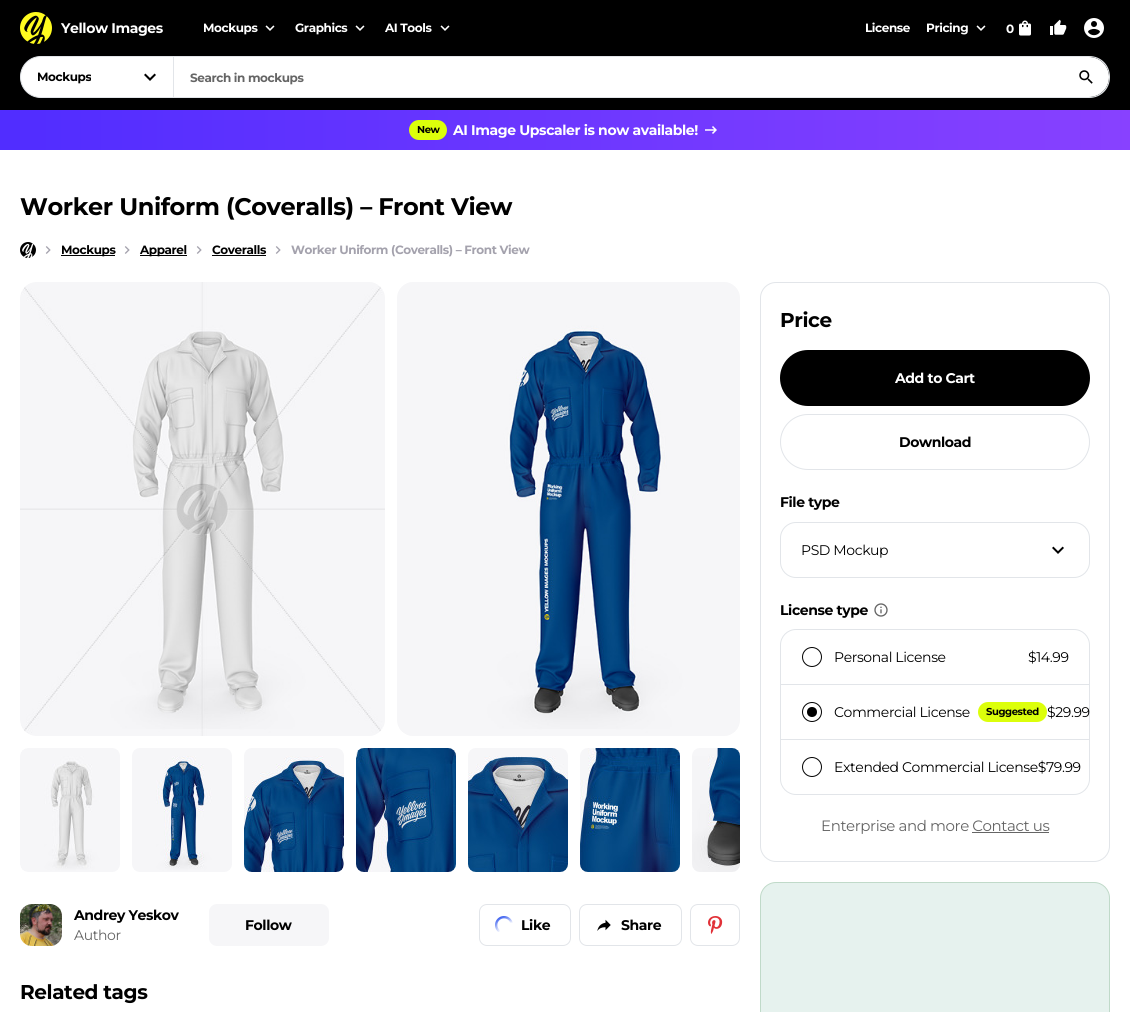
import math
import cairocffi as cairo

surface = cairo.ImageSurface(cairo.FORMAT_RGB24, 1130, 1012)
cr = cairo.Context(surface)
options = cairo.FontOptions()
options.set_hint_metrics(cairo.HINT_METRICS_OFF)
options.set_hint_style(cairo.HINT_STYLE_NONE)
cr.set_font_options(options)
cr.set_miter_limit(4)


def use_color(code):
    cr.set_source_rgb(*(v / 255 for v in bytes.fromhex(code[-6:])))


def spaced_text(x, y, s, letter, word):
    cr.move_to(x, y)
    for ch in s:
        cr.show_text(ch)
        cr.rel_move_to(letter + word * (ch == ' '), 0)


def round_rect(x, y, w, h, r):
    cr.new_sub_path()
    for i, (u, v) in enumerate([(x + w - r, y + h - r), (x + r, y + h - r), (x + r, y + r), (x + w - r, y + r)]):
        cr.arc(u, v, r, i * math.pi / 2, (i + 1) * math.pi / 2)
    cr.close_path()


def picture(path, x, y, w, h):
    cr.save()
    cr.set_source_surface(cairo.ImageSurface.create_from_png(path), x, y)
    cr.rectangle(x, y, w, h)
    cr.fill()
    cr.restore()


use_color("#ffffff")
cr.paint()
use_color("#000000")
cr.rectangle(0, 0, 1130, 110)
cr.fill()
picture("img1.png", 20, 12, 32, 32)
cr.select_font_face("Montserrat Thin")
cr.set_font_size(14)
use_color("#ffffff")
spaced_text(61, 33, "Yellow Images", -0.4, 0)
cr.set_font_size(12)
spaced_text(203, 32, "Mockups", -0.4, 0)
picture("img2.png", 265, 25, 10, 6)
spaced_text(295, 32, "Graphics", -0.4, 0)
picture("img2.png", 355, 25, 10, 6)
spaced_text(385, 32, "AI Tools", -0.4, 0)
picture("img2.png", 440, 25, 10, 6)
spaced_text(865, 32, "License", -0.4, 0)
spaced_text(926, 32, "Pricing", -0.4, 0)
picture("img2.png", 976, 25, 10, 6)
spaced_text(1006, 33, "0", -0.4, 0)
picture("img3.png", 1019, 20, 12, 16)
picture("img4.png", 1050, 19, 17, 16)
picture("img5.png", 1084, 18, 20, 20)
cr.new_path()
cr.move_to(41, 56.5)
cr.line_to(173.5, 56.5)
cr.line_to(173.5, 97.5)
cr.line_to(41, 97.5)
cr.curve_to(29.5, 97.5, 20.5, 88.5, 20.5, 77)
cr.curve_to(20.5, 65.5, 29.5, 56.5, 41, 56.5)
cr.close_path()
cr.fill_preserve()
use_color("#e2e5e9")
cr.set_line_width(1)
cr.stroke()
cr.save()
cr.rectangle(37, 70, 54, 14)
cr.clip()
use_color("#000000")
spaced_text(37, 81, "Mockups", -0.4, 0)
cr.restore()
picture("img6.png", 144, 73, 12, 8)
use_color("#ffffff")
cr.new_path()
cr.move_to(174, 57)
cr.line_to(1089, 57)
cr.curve_to(1100, 57, 1109, 66, 1109, 77)
cr.curve_to(1109, 88, 1100, 97, 1089, 97)
cr.line_to(174, 97)
cr.close_path()
cr.fill()
use_color("#e2e5e9")
cr.set_fill_rule(cairo.FILL_RULE_EVEN_ODD)
cr.new_path()
cr.move_to(174, 56)
cr.line_to(1089, 56)
cr.curve_to(1101, 56, 1110, 65, 1110, 77)
cr.curve_to(1110, 89, 1101, 98, 1089, 98)
cr.line_to(174, 98)
cr.close_path()
cr.move_to(174, 57)
cr.line_to(1089, 57)
cr.curve_to(1100, 57, 1109, 66, 1109, 77)
cr.curve_to(1109, 88, 1100, 97, 1089, 97)
cr.line_to(174, 97)
cr.close_path()
cr.fill()
use_color("#656565")
spaced_text(190, 82, "Search in mockups", -0.4, 0)
picture("img7.png", 1079, 70, 14, 14)
gradient = cairo.LinearGradient(0, 130, 1130, 130)
gradient.add_color_stop_rgba(0.01, 0.318, 0.176, 1, 1)
gradient.add_color_stop_rgba(1, 0.533, 0.255, 1, 1)
cr.set_source(gradient)
cr.rectangle(0, 110, 1130, 40)
cr.fill()
use_color("#dcff0b")
round_rect(409, 120, 38, 20, 10)
cr.fill()
cr.set_font_size(10)
use_color("#000000")
spaced_text(417, 133, "New", -0.4, 0)
cr.set_font_size(14)
use_color("#ffffff")
spaced_text(453, 135, "AI Image Upscaler is now available!", -0.4, 0)
picture("img8.png", 705, 126, 12, 8)
cr.set_font_size(24)
use_color("#000000")
spaced_text(20, 215, "Worker Uniform (Coveralls) – Front View", -0.4, 0)
picture("img9.png", 20, 242, 16, 16)
picture("img10.png", 45, 246, 6, 8)
cr.rectangle(61, 255, 54, 1)
cr.fill()
cr.set_font_size(12)
spaced_text(61, 254, "Mockups", -0.4, 0)
picture("img10.png", 124, 246, 6, 8)
cr.rectangle(140, 255, 47, 1)
cr.fill()
spaced_text(140, 254, "Apparel", -0.4, 0)
picture("img10.png", 196, 246, 6, 8)
spaced_text(212, 254, "Coveralls", -0.4, 0)
cr.rectangle(212, 255, 54, 1)
cr.fill()
picture("img10.png", 275, 246, 6, 8)
use_color("#a4a2ad")
spaced_text(291, 254, "Worker Uniform (Coveralls) – Front View", -0.4, 0)
round_rect(760.5, 282.5, 349, 579, 15.5)
use_color("#e2e5e9")
cr.stroke()
cr.set_font_size(20)
use_color("#000000")
spaced_text(780, 327, "Price", -0.4, 0)
round_rect(780, 350, 310, 56, 28)
cr.fill()
cr.set_font_size(14)
use_color("#ffffff")
spaced_text(895, 383, "Add to Cart", -0.4, 0)
round_rect(780.5, 414.5, 309, 55, 27.5)
use_color("#e2e5e9")
cr.stroke()
use_color("#000000")
spaced_text(899, 447, "Download", -0.4, 0)
spaced_text(780, 507, "File type", -0.4, 0)
picture("img11.png", 1052, 546, 12, 8)
round_rect(780.5, 522.5, 309, 55, 15.5)
use_color("#e2e5e9")
cr.stroke()
cr.select_font_face("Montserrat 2 Thin")
use_color("#000000")
spaced_text(801, 555, "PSD Mockup", -0.4, 0)
cr.select_font_face("Montserrat Thin")
spaced_text(780, 615, "License type", -0.4, 0)
picture("img12.png", 874, 603, 14, 14)
cr.new_path()
cr.move_to(796, 629.5)
cr.line_to(1074, 629.5)
cr.curve_to(1082.5, 629.5, 1089.5, 636.5, 1089.5, 645)
cr.line_to(1089.5, 684.5)
cr.line_to(780.5, 684.5)
cr.line_to(780.5, 645)
cr.curve_to(780.5, 636.5, 787.5, 629.5, 796, 629.5)
cr.close_path()
use_color("#e2e5e9")
cr.stroke()
cr.arc(812, 657, 9.5, 0, 2 * math.pi)
use_color("#000000")
cr.stroke()
cr.select_font_face("Montserrat 2 Thin")
spaced_text(834, 662, "Personal License", -0.4, 0)
spaced_text(1028, 662, "$14.99", -0.4, 0)
cr.rectangle(780.5, 684.5, 309, 55)
use_color("#e2e5e9")
cr.stroke()
cr.arc(812, 712, 9.5, 0, 2 * math.pi)
use_color("#000000")
cr.stroke()
cr.arc(812, 712, 5, 0, 2 * math.pi)
cr.fill()
spaced_text(834, 717, "Commercial License", -0.4, 0)
use_color("#dcff0b")
round_rect(978, 702, 69, 20, 10)
cr.fill()
cr.select_font_face("Montserrat Thin")
cr.set_font_size(10)
use_color("#000000")
spaced_text(986, 715, "Suggested", -0.4, 0)
cr.select_font_face("Montserrat 2 Thin")
cr.set_font_size(14)
spaced_text(1047, 717, "$29.99", -0.4, 0)
cr.new_path()
cr.move_to(780.5, 739.5)
cr.line_to(1089.5, 739.5)
cr.line_to(1089.5, 779)
cr.curve_to(1089.5, 787.5, 1082.5, 794.5, 1074, 794.5)
cr.line_to(796, 794.5)
cr.curve_to(787.5, 794.5, 780.5, 787.5, 780.5, 779)
cr.close_path()
use_color("#e2e5e9")
cr.stroke()
cr.arc(812, 767, 9.5, 0, 2 * math.pi)
use_color("#000000")
cr.stroke()
spaced_text(834, 772, "Extended Commercial License$79.99", -0.4, 0)
cr.set_font_size(15)
use_color("#656565")
spaced_text(821, 831, "Enterprise and more Contact us", -0.4, 0)
cr.rectangle(972, 832, 77, 1)
cr.fill()
use_color("#e6f2ee")
round_rect(760.5, 882.5, 349, 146, 15.5)
cr.fill_preserve()
use_color("#c0dac9")
cr.stroke()
picture("img13.png", 20, 282, 365, 454)
picture("img14.png", 397, 282, 343, 454)
picture("img15.png", 20, 748, 100, 124)
picture("img16.png", 132, 748, 100, 124)
picture("img17.png", 244, 748, 100, 124)
picture("img18.png", 356, 748, 100, 124)
picture("img19.png", 468, 748, 100, 124)
picture("img20.png", 580, 748, 100, 124)
picture("img21.png", 692, 748, 48, 124)
picture("img22.png", 20, 904, 42, 42)
cr.select_font_face("Montserrat Thin")
cr.set_font_size(14)
use_color("#000000")
spaced_text(74, 920, "Andrey Yeskov", -0.4, 0)
cr.select_font_face("Montserrat 2 Thin")
use_color("#656565")
spaced_text(74, 940, "Author", -0.4, 0)
use_color("#f6f6f8")
round_rect(209, 904, 120, 42, 8)
cr.fill()
cr.select_font_face("Montserrat Thin")
use_color("#000000")
spaced_text(245, 930, "Follow", -0.4, 0)
round_rect(479.5, 904.5, 91, 41, 7.5)
use_color("#e2e5e9")
cr.stroke()
picture("img23.png", 495, 916, 18, 16)
use_color("#000000")
spaced_text(521, 930, "Like", -0.4, 0)
round_rect(579.5, 904.5, 102, 41, 7.5)
use_color("#e2e5e9")
cr.stroke()
picture("img24.png", 597, 919, 14, 12)
use_color("#000000")
spaced_text(621, 930, "Share", -0.4, 0)
round_rect(690.5, 904.5, 49, 41, 7.5)
use_color("#e2e5e9")
cr.stroke()
picture("img25.png", 708, 916, 15, 18)
cr.set_font_size(20)
use_color("#000000")
spaced_text(20, 999, "Related tags", -0.4, 0)
surface.write_to_png("result.png")
